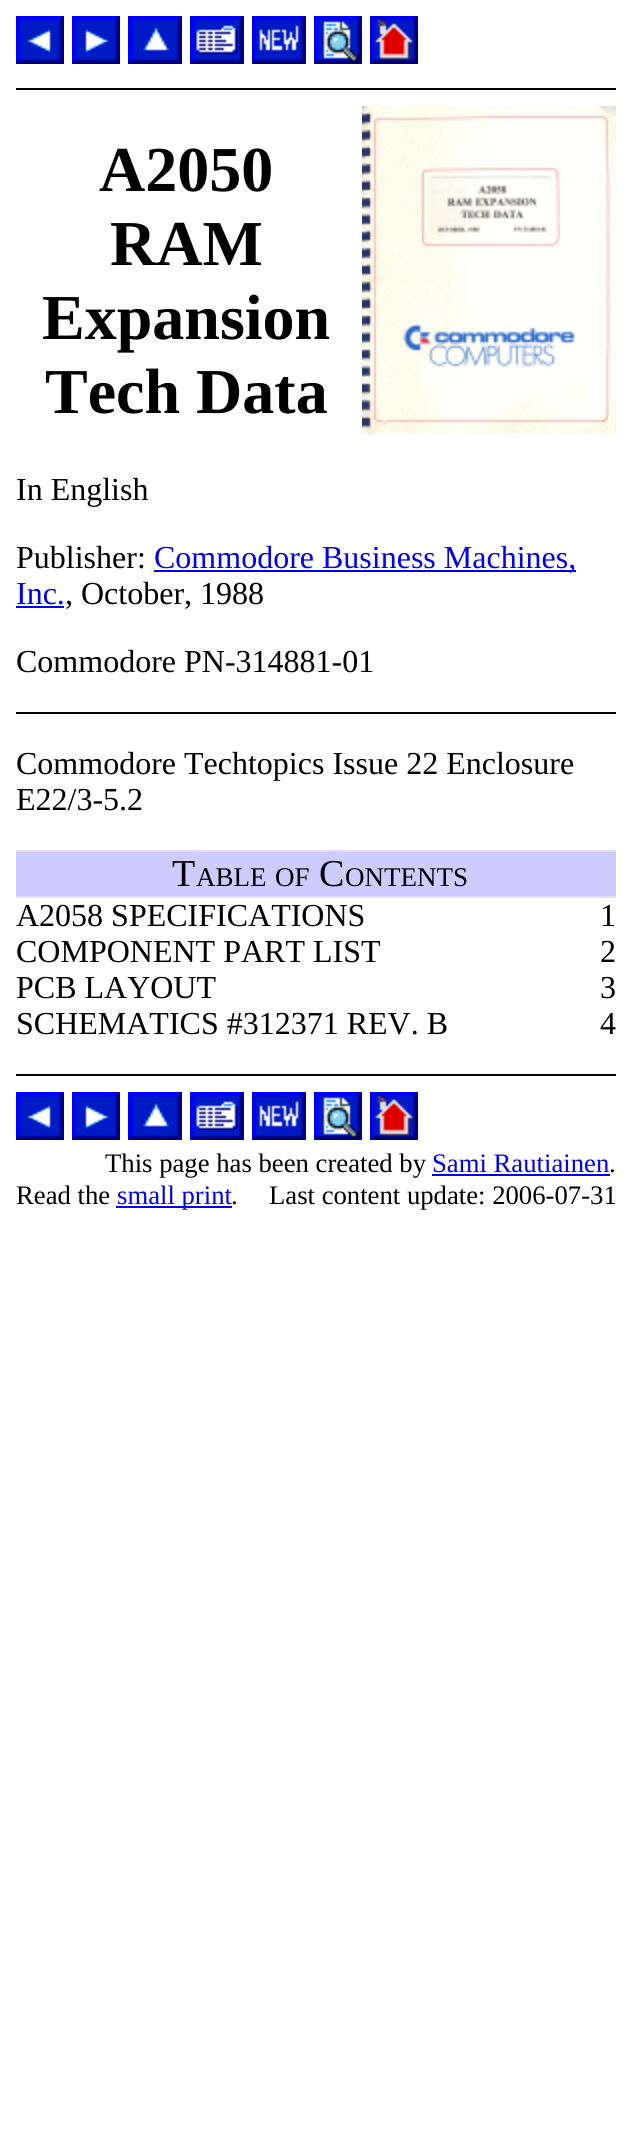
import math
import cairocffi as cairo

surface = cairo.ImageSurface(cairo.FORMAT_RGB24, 632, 2145)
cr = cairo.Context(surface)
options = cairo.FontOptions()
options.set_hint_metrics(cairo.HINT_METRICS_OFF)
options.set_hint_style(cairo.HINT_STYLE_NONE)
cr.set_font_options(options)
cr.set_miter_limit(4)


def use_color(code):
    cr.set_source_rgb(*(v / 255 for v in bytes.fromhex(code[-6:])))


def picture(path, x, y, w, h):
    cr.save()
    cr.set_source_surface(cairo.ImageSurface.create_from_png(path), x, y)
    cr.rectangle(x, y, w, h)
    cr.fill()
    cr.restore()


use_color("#ffffff")
cr.paint()
picture("img1.png", 16, 16, 48, 48)
picture("img2.png", 72, 16, 48, 48)
picture("img3.png", 128, 16, 54, 48)
picture("img4.png", 190, 16, 54, 48)
picture("img5.png", 252, 16, 54, 48)
picture("img6.png", 314, 16, 48, 48)
picture("img7.png", 370, 16, 48, 48)
use_color("#000000")
cr.rectangle(16, 88, 600, 2)
cr.fill()
cr.select_font_face("Liberation Serif", cairo.FONT_SLANT_NORMAL, cairo.FONT_WEIGHT_BOLD)
cr.set_font_size(64)
cr.move_to(99, 191)
cr.show_text("A2050")
cr.move_to(110, 265)
cr.show_text("RAM")
cr.move_to(42, 339)
cr.show_text("Expansion")
cr.move_to(45, 413)
cr.show_text("Tech Data")
picture("img8.png", 362, 106, 254, 328)
cr.select_font_face("Liberation Serif")
cr.set_font_size(32)
cr.move_to(16, 500)
cr.show_text("In English")
cr.move_to(16, 568)
cr.show_text("Publisher:")
use_color("#0000ee")
cr.rectangle(154, 570, 422, 2)
cr.fill()
cr.move_to(154, 568)
cr.show_text("Commodore Business Machines,")
cr.move_to(16, 604)
cr.show_text("Inc.")
cr.rectangle(16, 606, 48, 2)
cr.fill()
use_color("#000000")
cr.move_to(65, 604)
cr.show_text(", October, 1988")
cr.move_to(16, 672)
cr.show_text("Commodore PN-314881-01")
cr.rectangle(16, 712, 600, 2)
cr.fill()
cr.move_to(16, 774)
cr.show_text("Commodore Techtopics Issue 22 Enclosure")
cr.move_to(16, 810)
cr.show_text("E22/3-5.2")
use_color("#ccccff")
cr.rectangle(16, 852, 600, 44)
cr.fill()
use_color("#ddddff")
cr.rectangle(16, 850, 600, 2)
cr.fill()
cr.rectangle(16, 896, 600, 2)
cr.fill()
cr.set_font_size(38)
use_color("#000000")
cr.move_to(172, 886)
cr.show_text("T")
cr.set_font_size(27)
cr.move_to(196, 886)
cr.show_text("ABLE")
cr.move_to(275, 886)
cr.show_text("OF")
cr.set_font_size(38)
cr.move_to(319, 886)
cr.show_text("C")
cr.set_font_size(27)
cr.move_to(345, 886)
cr.show_text("ONTENTS")
cr.set_font_size(32)
cr.move_to(16, 926)
cr.show_text("A2058 SPECIFICATIONS")
cr.move_to(600, 926)
cr.show_text("1")
cr.move_to(16, 962)
cr.show_text("COMPONENT PART LIST")
cr.move_to(600, 962)
cr.show_text("2")
cr.move_to(16, 998)
cr.show_text("PCB LAYOUT")
cr.move_to(600, 998)
cr.show_text("3")
cr.move_to(16, 1034)
cr.show_text("SCHEMATICS #312371 REV. B")
cr.move_to(600, 1034)
cr.show_text("4")
cr.rectangle(16, 1074, 600, 2)
cr.fill()
picture("img1.png", 16, 1092, 48, 48)
picture("img2.png", 72, 1092, 48, 48)
picture("img3.png", 128, 1092, 54, 48)
picture("img4.png", 190, 1092, 54, 48)
picture("img5.png", 252, 1092, 54, 48)
picture("img6.png", 314, 1092, 48, 48)
picture("img7.png", 370, 1092, 48, 48)
cr.set_font_size(26.7)
cr.move_to(105, 1172)
cr.show_text("This page has been created by")
use_color("#0000ee")
cr.move_to(432, 1172)
cr.show_text("Sami Rautiainen")
use_color("#000000")
cr.move_to(609, 1172)
cr.show_text(".")
use_color("#0000ee")
cr.rectangle(432, 1174, 178, 2)
cr.fill()
use_color("#000000")
cr.move_to(16, 1204)
cr.show_text("Read the")
use_color("#0000ee")
cr.rectangle(116, 1206, 116, 2)
cr.fill()
cr.move_to(117, 1204)
cr.show_text("small print")
use_color("#000000")
cr.move_to(231, 1204)
cr.show_text(".")
cr.move_to(269, 1204)
cr.show_text("Last content update: 2006-07-31")
surface.write_to_png("result.png")
